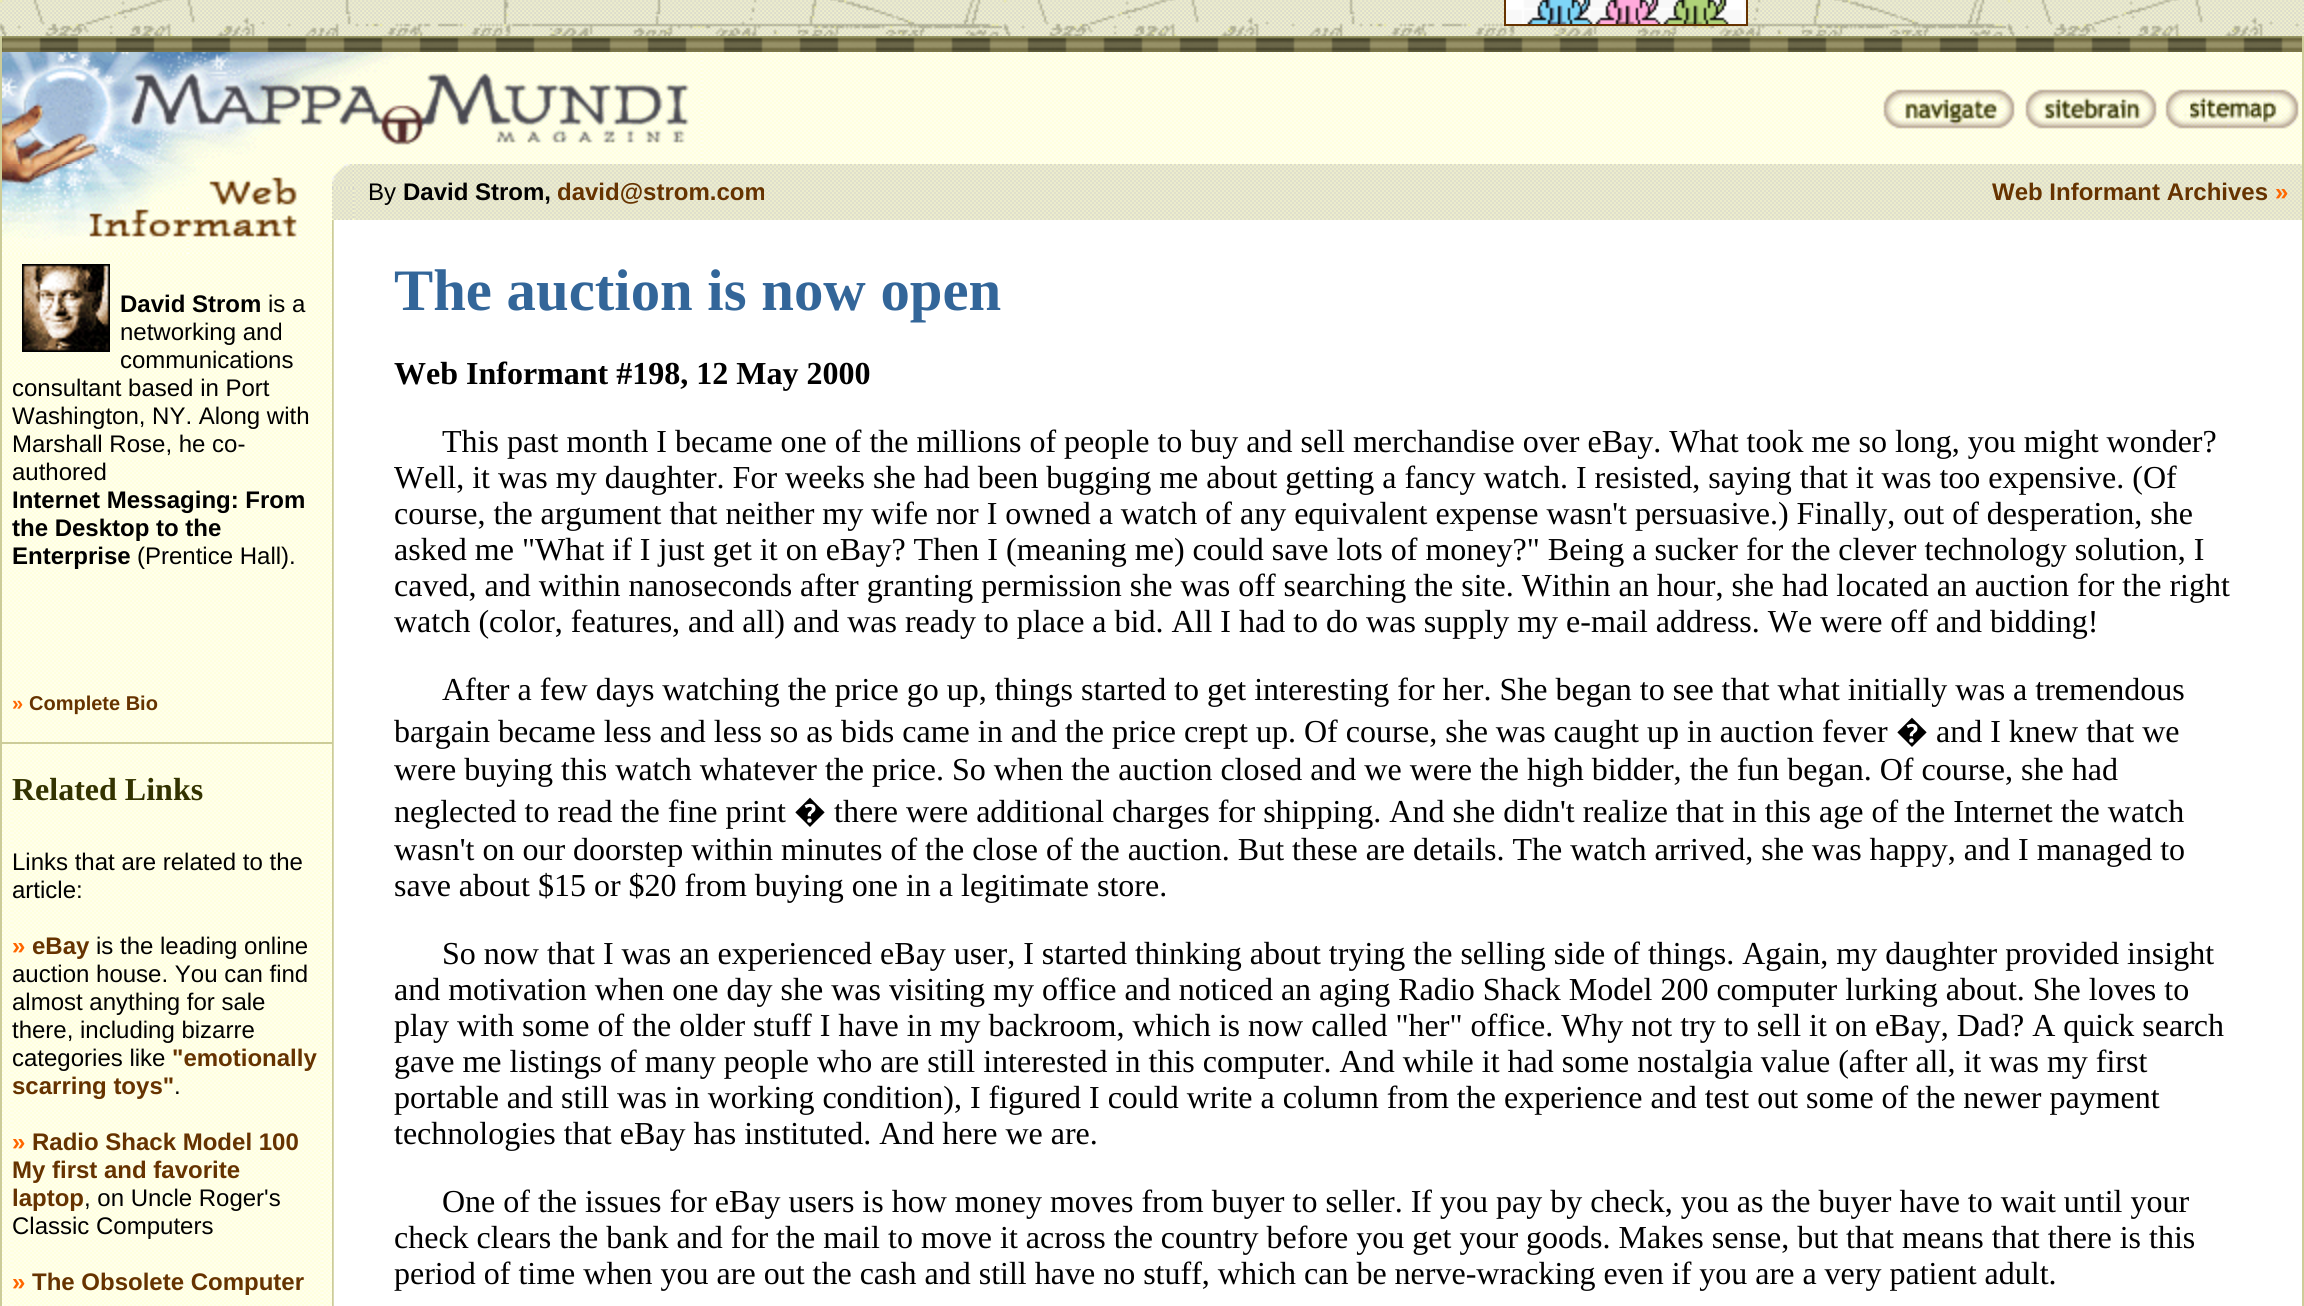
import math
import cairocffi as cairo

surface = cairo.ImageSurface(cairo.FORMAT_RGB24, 2304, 1306)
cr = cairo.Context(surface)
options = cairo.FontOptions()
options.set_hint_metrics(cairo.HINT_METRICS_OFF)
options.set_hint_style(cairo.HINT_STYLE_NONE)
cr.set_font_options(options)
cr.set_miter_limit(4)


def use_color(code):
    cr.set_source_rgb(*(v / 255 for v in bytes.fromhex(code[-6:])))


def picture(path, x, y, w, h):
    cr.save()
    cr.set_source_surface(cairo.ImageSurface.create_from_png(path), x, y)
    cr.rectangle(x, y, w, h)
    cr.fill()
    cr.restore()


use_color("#ffffff")
cr.paint()
picture("img1.png", 2, 164, 330, 1142)
picture("img2.png", 0, 0, 2304, 36)
cr.rectangle(1505, -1, 242, 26)
use_color("#663300")
cr.stroke()
picture("img3.png", 1506, 0, 240, 24)
use_color("#cccc99")
cr.rectangle(0, 36, 2, 1270)
cr.fill()
use_color("#999966")
cr.rectangle(2, 36, 2300, 1)
cr.fill()
picture("img4.png", 2, 37, 2300, 15)
use_color("#cccc99")
cr.rectangle(2302, 36, 2, 1270)
cr.fill()
picture("img5.png", 702, 52, 1600, 112)
picture("img6.png", 2, 52, 700, 112)
picture("img7.png", 1883, 89, 132, 40)
picture("img8.png", 2025, 89, 132, 40)
picture("img9.png", 2165, 89, 134, 40)
picture("img10.png", 332, 188, 22, 32)
picture("img11.png", 332, 164, 22, 24)
picture("img12.png", 354, 164, 1948, 56)
cr.select_font_face("Liberation Sans")
cr.set_font_size(24)
use_color("#000000")
cr.move_to(368, 200)
cr.show_text("By")
cr.select_font_face("Liberation Sans", cairo.FONT_SLANT_NORMAL, cairo.FONT_WEIGHT_BOLD)
cr.move_to(403, 200)
cr.show_text("David Strom,")
use_color("#663300")
cr.move_to(557, 200)
cr.show_text("david@strom.com")
cr.move_to(1992, 200)
cr.show_text("Web Informant Archives")
use_color("#ff6600")
cr.move_to(2275, 200)
cr.show_text("»")
picture("img13.png", 2, 164, 320, 90)
picture("img14.png", 22, 264, 88, 88)
use_color("#000000")
cr.move_to(120, 312)
cr.show_text("David Strom")
cr.select_font_face("Liberation Sans")
cr.move_to(268, 312)
cr.show_text("is a")
cr.move_to(120, 340)
cr.show_text("networking and")
cr.move_to(120, 368)
cr.show_text("communications")
cr.move_to(12, 396)
cr.show_text("consultant based in Port")
cr.move_to(12, 424)
cr.show_text("Washington, NY. Along with")
cr.move_to(12, 452)
cr.show_text("Marshall Rose, he co-")
cr.move_to(12, 480)
cr.show_text("authored")
cr.select_font_face("Liberation Sans", cairo.FONT_SLANT_NORMAL, cairo.FONT_WEIGHT_BOLD)
cr.move_to(12, 508)
cr.show_text("Internet Messaging: From")
cr.move_to(12, 536)
cr.show_text("the Desktop to the")
cr.move_to(12, 564)
cr.show_text("Enterprise")
cr.select_font_face("Liberation Sans")
cr.move_to(137, 564)
cr.show_text("(Prentice Hall).")
cr.select_font_face("Liberation Sans", cairo.FONT_SLANT_NORMAL, cairo.FONT_WEIGHT_BOLD)
cr.set_font_size(20)
use_color("#ff6600")
cr.move_to(12, 710)
cr.show_text("»")
use_color("#663300")
cr.move_to(29, 710)
cr.show_text("Complete Bio")
use_color("#cccc99")
cr.rectangle(2, 742, 330, 2)
cr.fill()
picture("img15.png", 2, 772, 10, 534)
cr.select_font_face("Liberation Serif", cairo.FONT_SLANT_NORMAL, cairo.FONT_WEIGHT_BOLD)
cr.set_font_size(32)
use_color("#333300")
cr.move_to(12, 800)
cr.show_text("Related Links")
cr.select_font_face("Liberation Sans")
cr.set_font_size(24)
use_color("#000000")
cr.move_to(12, 870)
cr.show_text("Links that are related to the")
cr.move_to(12, 898)
cr.show_text("article:")
cr.select_font_face("Liberation Sans", cairo.FONT_SLANT_NORMAL, cairo.FONT_WEIGHT_BOLD)
use_color("#ff6600")
cr.move_to(12, 954)
cr.show_text("»")
use_color("#663300")
cr.move_to(32, 954)
cr.show_text("eBay")
cr.select_font_face("Liberation Sans")
use_color("#000000")
cr.move_to(96, 954)
cr.show_text("is the leading online")
cr.move_to(12, 982)
cr.show_text("auction house. You can find")
cr.move_to(12, 1010)
cr.show_text("almost anything for sale")
cr.move_to(12, 1038)
cr.show_text("there, including bizarre")
cr.move_to(12, 1066)
cr.show_text("categories like")
cr.select_font_face("Liberation Sans", cairo.FONT_SLANT_NORMAL, cairo.FONT_WEIGHT_BOLD)
use_color("#663300")
cr.move_to(172, 1066)
cr.show_text("\"emotionally")
cr.move_to(12, 1094)
cr.show_text("scarring toys\"")
cr.select_font_face("Liberation Sans")
use_color("#000000")
cr.move_to(174, 1094)
cr.show_text(".")
cr.select_font_face("Liberation Sans", cairo.FONT_SLANT_NORMAL, cairo.FONT_WEIGHT_BOLD)
use_color("#ff6600")
cr.move_to(12, 1150)
cr.show_text("»")
use_color("#663300")
cr.move_to(32, 1150)
cr.show_text("Radio Shack Model 100")
cr.move_to(12, 1178)
cr.show_text("My first and favorite")
cr.move_to(12, 1206)
cr.show_text("laptop")
cr.select_font_face("Liberation Sans")
use_color("#000000")
cr.move_to(84, 1206)
cr.show_text(", on Uncle Roger's")
cr.move_to(12, 1234)
cr.show_text("Classic Computers")
cr.select_font_face("Liberation Sans", cairo.FONT_SLANT_NORMAL, cairo.FONT_WEIGHT_BOLD)
use_color("#ff6600")
cr.move_to(12, 1290)
cr.show_text("»")
use_color("#663300")
cr.move_to(32, 1290)
cr.show_text("The Obsolete Computer")
picture("img15.png", 322, 772, 10, 534)
picture("img16.png", 332, 220, 2, 1086)
cr.select_font_face("Liberation Serif", cairo.FONT_SLANT_NORMAL, cairo.FONT_WEIGHT_BOLD)
cr.set_font_size(58.75)
use_color("#336699")
cr.move_to(394, 310)
cr.show_text("The auction is now open")
cr.set_font_size(32)
use_color("#000000")
cr.move_to(394, 384)
cr.show_text("Web Informant #198, 12 May 2000")
cr.select_font_face("Liberation Serif")
cr.move_to(442, 452)
cr.show_text("This past month I became one of the millions of people to buy and sell merchandise over eBay. What took me so long, you might wonder?")
cr.move_to(394, 488)
cr.show_text("Well, it was my daughter. For weeks she had been bugging me about getting a fancy watch. I resisted, saying that it was too expensive. (Of")
cr.move_to(394, 524)
cr.show_text("course, the argument that neither my wife nor I owned a watch of any equivalent expense wasn't persuasive.) Finally, out of desperation, she")
cr.move_to(394, 560)
cr.show_text("asked me \"What if I just get it on eBay? Then I (meaning me) could save lots of money?\" Being a sucker for the clever technology solution, I")
cr.move_to(394, 596)
cr.show_text("caved, and within nanoseconds after granting permission she was off searching the site. Within an hour, she had located an auction for the right")
cr.move_to(394, 632)
cr.show_text("watch (color, features, and all) and was ready to place a bid. All I had to do was supply my e-mail address. We were off and bidding!")
cr.move_to(442, 700)
cr.show_text("After a few days watching the price go up, things started to get interesting for her. She began to see that what initially was a tremendous")
cr.move_to(394, 742)
cr.show_text("bargain became less and less so as bids came in and the price crept up. Of course, she was caught up in auction fever")
cr.select_font_face("Noto Sans")
cr.move_to(1896, 742)
cr.show_text("�")
cr.select_font_face("Liberation Serif")
cr.move_to(1936, 742)
cr.show_text("and I knew that we")
cr.move_to(394, 780)
cr.show_text("were buying this watch whatever the price. So when the auction closed and we were the high bidder, the fun began. Of course, she had")
cr.move_to(394, 822)
cr.show_text("neglected to read the fine print")
cr.select_font_face("Noto Sans")
cr.move_to(794, 822)
cr.show_text("�")
cr.select_font_face("Liberation Serif")
cr.move_to(834, 822)
cr.show_text("there were additional charges for shipping. And she didn't realize that in this age of the Internet the watch")
cr.move_to(394, 860)
cr.show_text("wasn't on our doorstep within minutes of the close of the auction. But these are details. The watch arrived, she was happy, and I managed to")
cr.move_to(394, 896)
cr.show_text("save about $15 or $20 from buying one in a legitimate store.")
cr.move_to(442, 964)
cr.show_text("So now that I was an experienced eBay user, I started thinking about trying the selling side of things. Again, my daughter provided insight")
cr.move_to(394, 1000)
cr.show_text("and motivation when one day she was visiting my office and noticed an aging Radio Shack Model 200 computer lurking about. She loves to")
cr.move_to(394, 1036)
cr.show_text("play with some of the older stuff I have in my backroom, which is now called \"her\" office. Why not try to sell it on eBay, Dad? A quick search")
cr.move_to(394, 1072)
cr.show_text("gave me listings of many people who are still interested in this computer. And while it had some nostalgia value (after all, it was my first")
cr.move_to(394, 1108)
cr.show_text("portable and still was in working condition), I figured I could write a column from the experience and test out some of the newer payment")
cr.move_to(394, 1144)
cr.show_text("technologies that eBay has instituted. And here we are.")
cr.move_to(442, 1212)
cr.show_text("One of the issues for eBay users is how money moves from buyer to seller. If you pay by check, you as the buyer have to wait until your")
cr.move_to(394, 1248)
cr.show_text("check clears the bank and for the mail to move it across the country before you get your goods. Makes sense, but that means that there is this")
cr.move_to(394, 1284)
cr.show_text("period of time when you are out the cash and still have no stuff, which can be nerve-wracking even if you are a very patient adult.")
surface.write_to_png("result.png")
